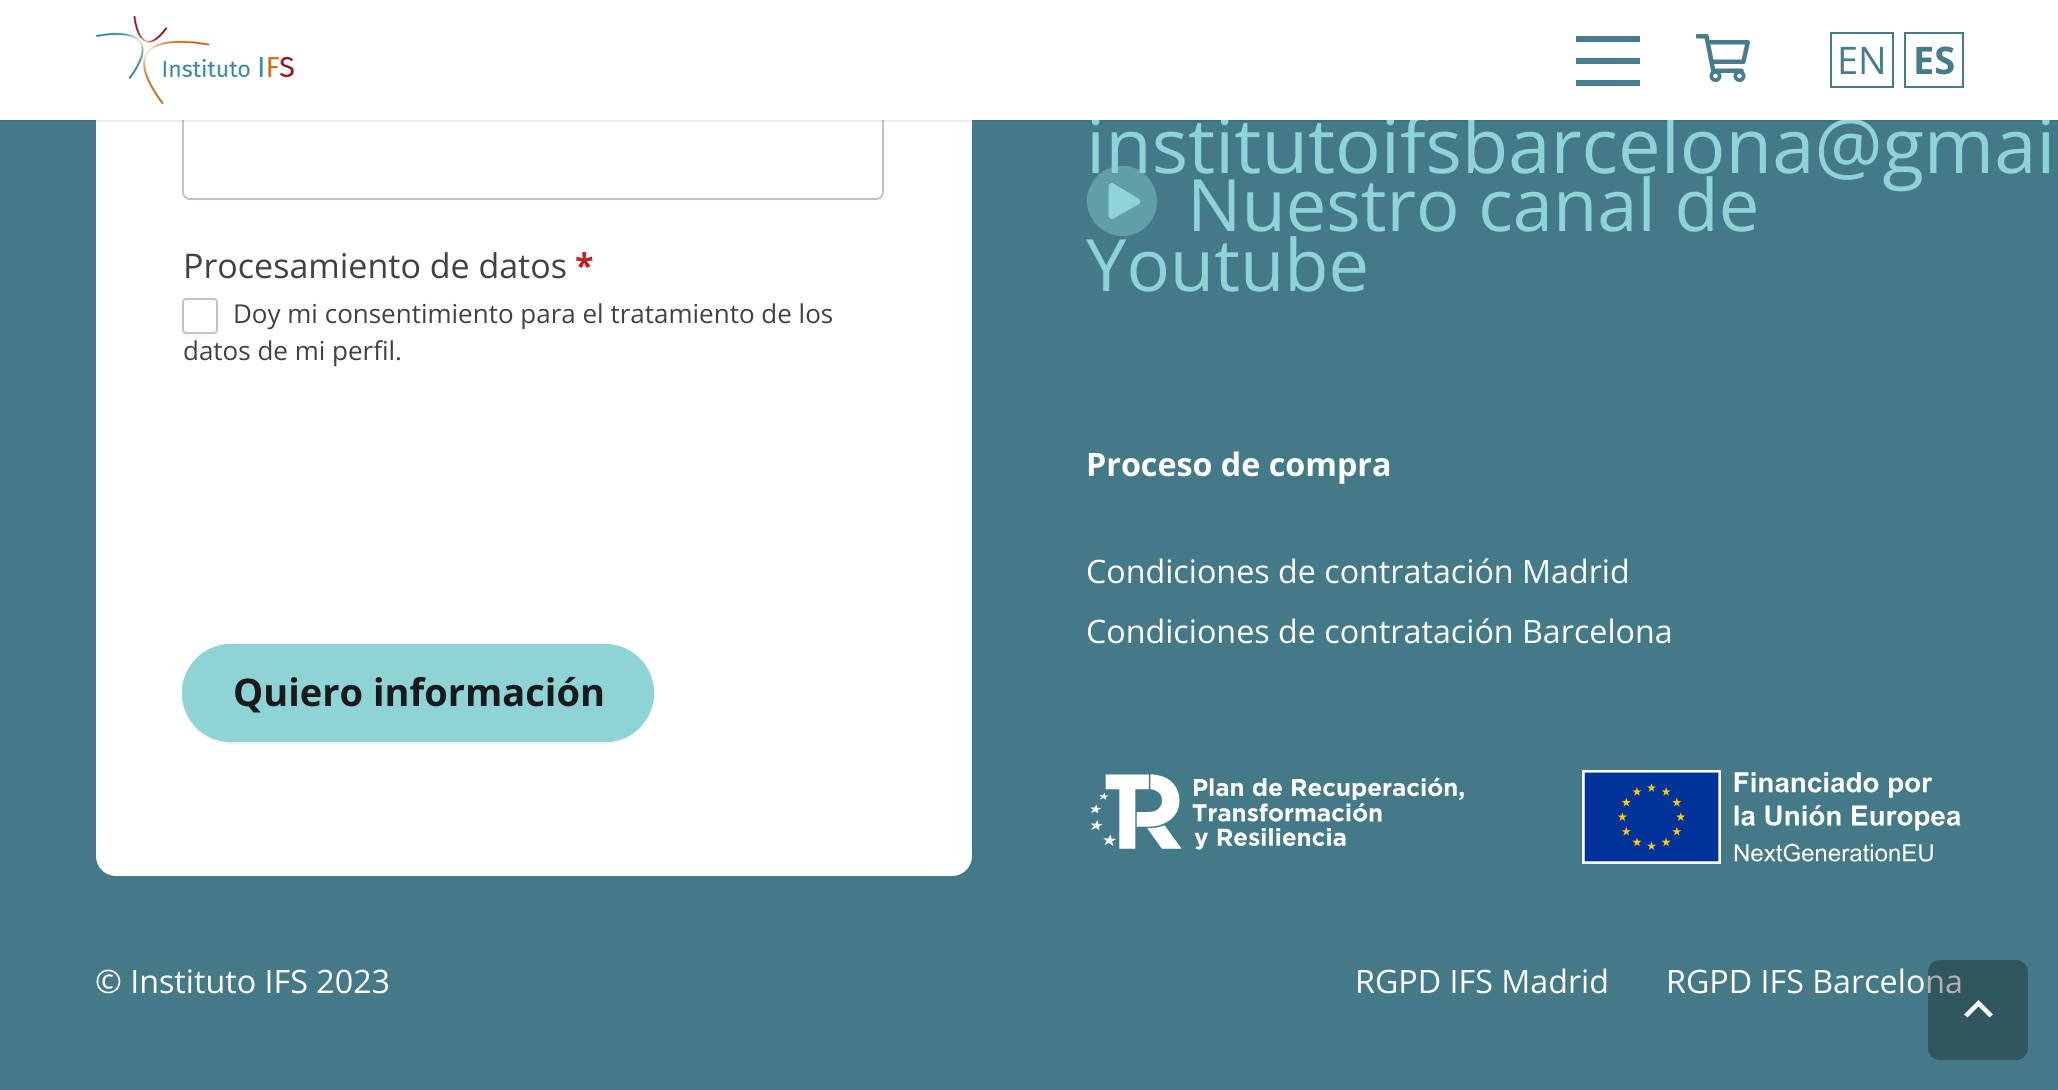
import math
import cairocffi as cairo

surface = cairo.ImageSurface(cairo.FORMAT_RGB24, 2058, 1090)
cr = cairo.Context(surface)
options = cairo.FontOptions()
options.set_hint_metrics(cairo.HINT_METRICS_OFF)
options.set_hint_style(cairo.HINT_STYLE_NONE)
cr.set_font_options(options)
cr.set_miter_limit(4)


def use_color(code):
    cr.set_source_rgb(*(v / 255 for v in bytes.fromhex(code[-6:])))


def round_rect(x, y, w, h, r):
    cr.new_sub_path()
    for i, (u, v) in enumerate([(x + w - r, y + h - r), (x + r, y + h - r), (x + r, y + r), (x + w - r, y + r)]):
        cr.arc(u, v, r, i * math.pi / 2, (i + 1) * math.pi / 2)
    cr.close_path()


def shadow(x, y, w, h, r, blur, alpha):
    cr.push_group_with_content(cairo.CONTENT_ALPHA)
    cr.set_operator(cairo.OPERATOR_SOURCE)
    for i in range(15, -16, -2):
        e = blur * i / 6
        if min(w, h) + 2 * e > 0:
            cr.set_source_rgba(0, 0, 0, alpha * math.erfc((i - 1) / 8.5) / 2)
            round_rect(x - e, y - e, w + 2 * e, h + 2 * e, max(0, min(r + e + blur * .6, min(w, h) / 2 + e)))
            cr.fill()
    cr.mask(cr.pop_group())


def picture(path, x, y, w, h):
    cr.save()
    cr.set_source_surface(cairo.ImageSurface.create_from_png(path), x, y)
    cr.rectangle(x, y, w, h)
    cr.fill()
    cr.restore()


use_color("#447a88")
cr.paint()
use_color("#ffffff")
cr.new_path()
cr.move_to(96, -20)
cr.line_to(972, -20)
cr.line_to(972, 856)
cr.curve_to(972, 867, 963, 876, 952, 876)
cr.line_to(116, 876)
cr.curve_to(105, 876, 96, 867, 96, 856)
cr.close_path()
cr.fill()
round_rect(183, -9, 700, 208, 7)
use_color("#bfc3c8")
cr.stroke()
cr.set_source_rgba(0, 0, 0, 0.08)
cr.rectangle(0, 120, 2058, 2)
cr.fill()
cr.select_font_face("Open Sans")
cr.set_font_size(76)
use_color("#8ed4d6")
cr.move_to(1086, 173)
cr.show_text("institutoifsbarcelona@gmai")
use_color("#ffffff")
cr.rectangle(0, 0, 2058, 120)
cr.fill()
picture("img1.png", 96, 16, 198, 88)
use_color("#467c8b")
cr.rectangle(1576, 58, 64, 6)
cr.fill()
cr.rectangle(1576, 36, 64, 6)
cr.fill()
cr.rectangle(1576, 80, 64, 6)
cr.fill()
picture("img2.png", 1696, 34, 54, 48)
cr.rectangle(1831, 33, 62, 54)
cr.stroke()
cr.set_font_size(38)
cr.move_to(1837, 74)
cr.show_text("EN")
cr.rectangle(1905, 33, 58, 54)
cr.stroke()
cr.select_font_face("Open Sans", cairo.FONT_SLANT_NORMAL, cairo.FONT_WEIGHT_BOLD)
cr.move_to(1913, 74)
cr.show_text("ES")
cr.select_font_face("Open Sans")
cr.set_font_size(34)
use_color("#414141")
cr.move_to(183, 278)
cr.show_text("Procesamiento de datos")
cr.select_font_face("Open Sans", cairo.FONT_SLANT_NORMAL, cairo.FONT_WEIGHT_BOLD)
use_color("#c02121")
cr.move_to(575, 278)
cr.show_text("*")
use_color("#121217")
shadow(182, 300, 36, 36, 4, 2, 0.05)
use_color("#ffffff")
round_rect(183, 299, 34, 34, 3)
cr.fill_preserve()
use_color("#bfc3c8")
cr.stroke()
cr.select_font_face("Open Sans")
cr.set_font_size(26)
use_color("#414141")
cr.move_to(233, 323)
cr.show_text("Doy mi consentimiento para el tratamiento de los")
cr.move_to(183, 360)
cr.show_text("datos de mi perfil.")
use_color("#eeeeee")
shadow(182, 646, 472, 98, 49, 1, 1)
use_color("#8ed4d6")
round_rect(182, 644, 472, 98, 49)
cr.fill()
round_rect(185, 647, 466, 92, 46)
cr.set_line_width(6)
cr.stroke()
cr.select_font_face("Open Sans", cairo.FONT_SLANT_NORMAL, cairo.FONT_WEIGHT_BOLD)
cr.set_font_size(38)
use_color("#1a1a1a")
cr.move_to(233, 706)
cr.show_text("Quiero información")
picture("img3.png", 1108, 182, 33, 37)
cr.select_font_face("Open Sans")
cr.set_font_size(72.25)
use_color("#8ed4d6")
cr.move_to(1086, 291)
cr.show_text("Youtube")
cr.set_source_rgba(0.557, 0.831, 0.839, 0.4)
cr.new_path()
cr.move_to(1097, 176)
cr.curve_to(1103, 170, 1110, 167, 1119, 166)
cr.curve_to(1151, 163, 1170, 202, 1147, 226)
cr.curve_to(1124, 249, 1084, 230, 1087, 197)
cr.curve_to(1088, 189, 1092, 182, 1097, 176)
cr.close_path()
cr.move_to(1138, 204)
cr.curve_to(1145, 200, 1131, 194, 1130, 193)
cr.line_to(1122, 188)
cr.curve_to(1120, 187, 1114, 181, 1110, 183)
cr.curve_to(1108, 185, 1109, 189, 1109, 191)
cr.line_to(1109, 211)
cr.curve_to(1109, 213, 1108, 220, 1112, 219)
cr.close_path()
cr.fill()
use_color("#8ed4d6")
cr.move_to(1187, 231)
cr.show_text("Nuestro canal de")
cr.select_font_face("Open Sans", cairo.FONT_SLANT_NORMAL, cairo.FONT_WEIGHT_BOLD)
cr.set_font_size(32.25)
use_color("#ffffff")
cr.move_to(1086, 476)
cr.show_text("Proceso de compra")
cr.select_font_face("Open Sans")
cr.move_to(1086, 583)
cr.show_text("Condiciones de contratación Madrid")
cr.move_to(1086, 643)
cr.show_text("Condiciones de contratación Barcelona")
picture("img4.png", 1090, 774, 374, 76)
picture("img5.png", 1582, 770, 379, 94)
cr.move_to(95, 993)
cr.show_text("© Instituto IFS 2023")
cr.move_to(1355, 993)
cr.show_text("RGPD IFS Madrid")
cr.move_to(1666, 993)
cr.show_text("RGPD IFS Barcelona")
cr.set_source_rgba(0, 0, 0, 0.3)
round_rect(1928, 960, 100, 100, 12)
cr.fill()
use_color("#ffffff")
cr.new_path()
cr.move_to(1978.5, 1000)
cr.line_to(1993, 1014.5)
cr.line_to(1989.5, 1017.5)
cr.line_to(1978.5, 1006.5)
cr.line_to(1967.5, 1017.5)
cr.line_to(1964, 1014.5)
cr.close_path()
cr.fill()
surface.write_to_png("result.png")
